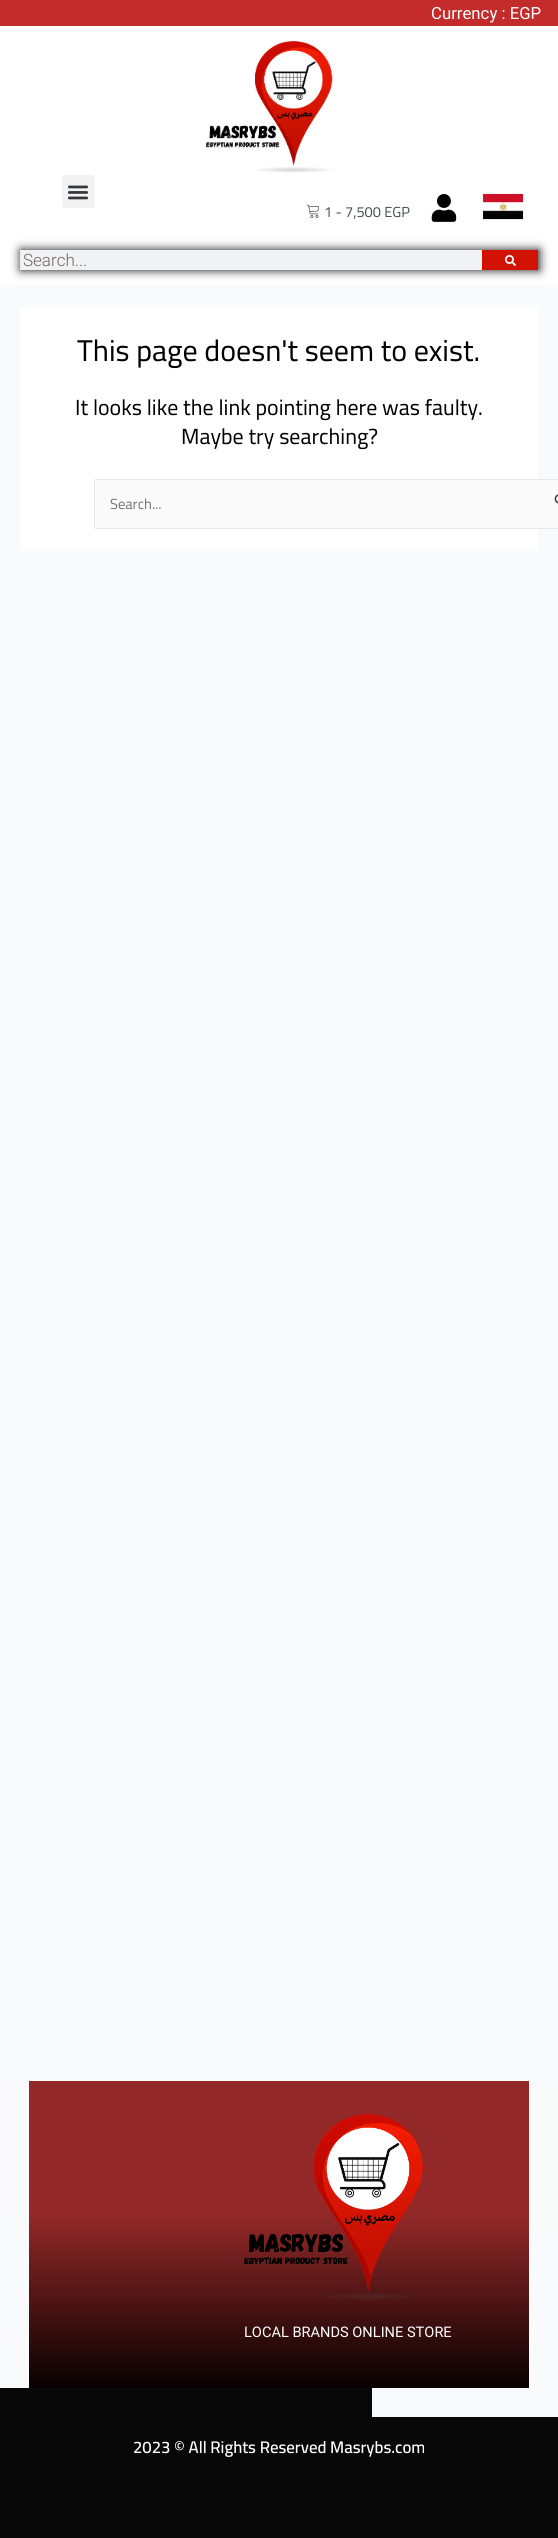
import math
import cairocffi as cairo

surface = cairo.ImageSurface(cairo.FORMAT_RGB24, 558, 2538)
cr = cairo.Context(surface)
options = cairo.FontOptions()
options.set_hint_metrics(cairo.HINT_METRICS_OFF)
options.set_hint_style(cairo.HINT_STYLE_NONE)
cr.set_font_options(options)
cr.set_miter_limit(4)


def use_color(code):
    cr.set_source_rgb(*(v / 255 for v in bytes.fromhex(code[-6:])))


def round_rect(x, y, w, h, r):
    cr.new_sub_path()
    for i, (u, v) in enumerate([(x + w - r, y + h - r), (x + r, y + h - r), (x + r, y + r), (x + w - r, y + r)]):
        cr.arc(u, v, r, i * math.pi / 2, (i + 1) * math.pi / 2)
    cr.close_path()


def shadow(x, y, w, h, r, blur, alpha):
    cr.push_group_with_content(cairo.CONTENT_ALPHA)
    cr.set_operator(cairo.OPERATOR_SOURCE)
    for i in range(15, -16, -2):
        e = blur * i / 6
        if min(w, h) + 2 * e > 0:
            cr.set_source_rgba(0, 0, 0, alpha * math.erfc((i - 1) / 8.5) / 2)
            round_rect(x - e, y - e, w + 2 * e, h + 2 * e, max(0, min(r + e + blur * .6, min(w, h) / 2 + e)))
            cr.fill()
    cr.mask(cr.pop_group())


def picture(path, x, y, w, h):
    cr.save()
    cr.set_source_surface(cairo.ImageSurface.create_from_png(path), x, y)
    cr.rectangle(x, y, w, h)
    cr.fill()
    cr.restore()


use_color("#f9fafb")
cr.paint()
use_color("#c42c2c")
cr.rectangle(0, 0, 558, 26)
cr.fill()
cr.select_font_face("Roboto")
cr.set_font_size(16.75)
use_color("#ffffff")
cr.move_to(431, 19)
cr.show_text("Currency : EGP")
cr.rectangle(0, 26, 558, 259)
cr.fill()
picture("img1.png", 206, 41, 127, 132)
use_color("#f2f2f2")
round_rect(62, 175, 33, 33, 3)
cr.fill()
picture("img2.png", 67, 185, 22, 15)
picture("img3.png", 306, 204, 13, 14)
cr.select_font_face("Cairo")
cr.set_font_size(14.6)
use_color("#465157")
cr.move_to(324, 217)
cr.show_text("1 - 7,500 EGP")
picture("img4.png", 431, 194, 26, 28)
picture("img5.png", 483, 193, 41, 27)
use_color("#000000")
shadow(21, 250, 518, 20, 0, 5, 0.97)
use_color("#f1f2f3")
cr.rectangle(20, 250, 462, 20)
cr.fill()
cr.select_font_face("Roboto Light")
cr.set_font_size(17)
use_color("#756162")
cr.move_to(23, 266)
cr.show_text("Search...")
use_color("#d21304")
cr.rectangle(482, 250, 56, 20)
cr.fill()
picture("img6.png", 505, 255, 11, 11)
use_color("#ffffff")
cr.rectangle(20, 307, 518, 244)
cr.fill()
cr.select_font_face("Cairo")
cr.set_font_size(30)
use_color("#000000")
cr.move_to(77, 361)
cr.show_text("This page doesn't seem to exist.")
cr.set_font_size(21.9)
cr.move_to(75, 415)
cr.show_text("It looks like the link pointing here was faulty.")
cr.move_to(181, 444)
cr.show_text("Maybe try searching?")
use_color("#fafafa")
round_rect(94.5, 479.5, 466, 49, 1.5)
cr.fill_preserve()
use_color("#e2e8f0")
cr.set_line_width(1)
cr.stroke()
cr.set_font_size(14.6)
use_color("#757575")
cr.move_to(110, 509)
cr.show_text("Search...")
picture("img7.png", 554, 494, 4, 10)
gradient = cairo.LinearGradient(279, 2388, 279, 2081)
gradient.add_color_stop_rgba(0, 0.031, 0, 0, 1)
gradient.add_color_stop_rgba(0.56, 0.576, 0.157, 0.157, 1)
cr.set_source(gradient)
cr.rectangle(29, 2081, 500, 307)
cr.fill()
picture("img8.png", 244, 2114, 179, 186)
cr.select_font_face("Roboto")
use_color("#ffffff")
cr.move_to(244, 2337)
cr.show_text("LOCAL BRANDS ONLINE STORE")
use_color("#090808")
cr.rectangle(0, 2388, 372, 29)
cr.fill()
cr.rectangle(0, 2417, 558, 121)
cr.fill()
cr.select_font_face("Cairo SemiBold")
cr.set_font_size(16.75)
use_color("#ffffff")
cr.move_to(133, 2453)
cr.show_text("2023 © All Rights Reserved Masrybs.com")
surface.write_to_png("result.png")
